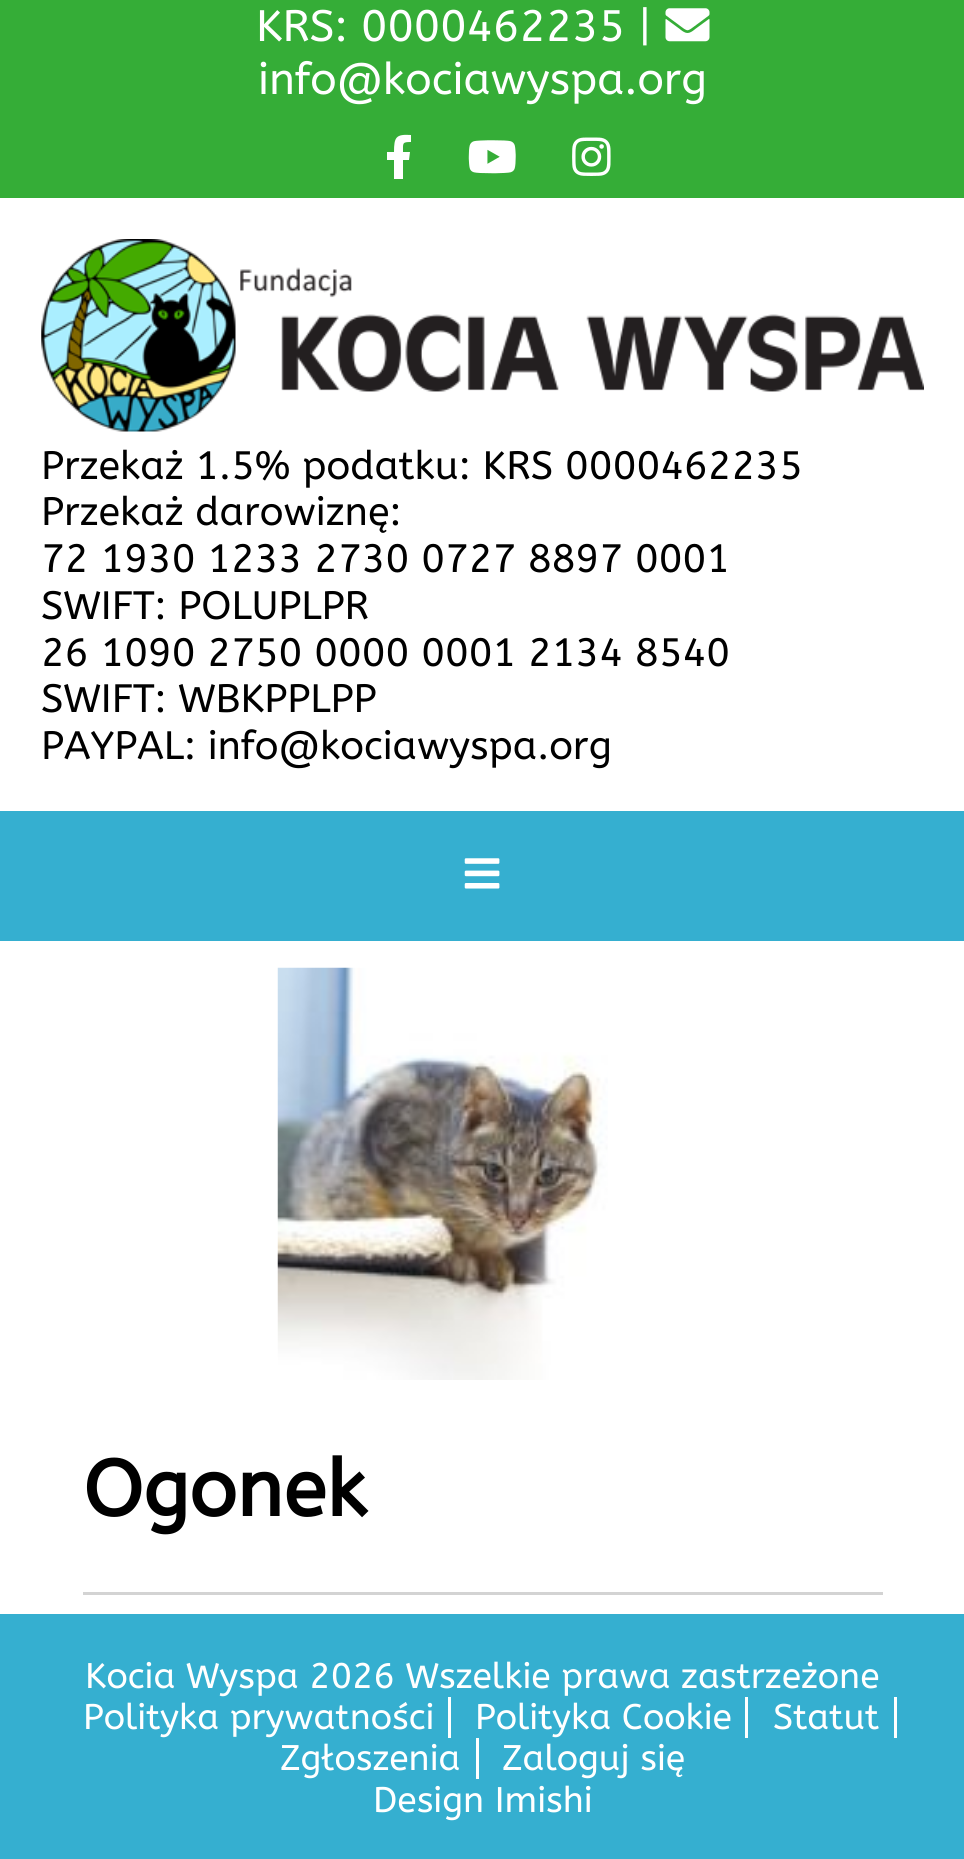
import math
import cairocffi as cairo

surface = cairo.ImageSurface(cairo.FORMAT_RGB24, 964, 1859)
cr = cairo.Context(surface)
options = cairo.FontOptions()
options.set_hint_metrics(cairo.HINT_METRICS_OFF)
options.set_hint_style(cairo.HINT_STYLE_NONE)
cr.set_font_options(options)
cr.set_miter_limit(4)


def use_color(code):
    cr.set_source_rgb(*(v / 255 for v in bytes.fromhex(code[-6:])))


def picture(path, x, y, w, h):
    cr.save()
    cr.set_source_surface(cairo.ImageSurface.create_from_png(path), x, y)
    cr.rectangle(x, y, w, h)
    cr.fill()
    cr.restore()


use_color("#ffffff")
cr.paint()
use_color("#35ad37")
cr.rectangle(0, 0, 964, 198)
cr.fill()
cr.select_font_face("ABeeZee")
cr.set_font_size(44)
use_color("#ffffff")
cr.move_to(256, 41)
cr.show_text("KRS: 0000462235 |")
picture("img1.png", 665, 8, 45, 34)
cr.move_to(258, 94)
cr.show_text("info@kociawyspa.org")
cr.new_path()
cr.move_to(409, 160)
cr.line_to(403, 160)
cr.line_to(403, 179)
cr.line_to(394, 179)
cr.line_to(394, 160)
cr.line_to(387, 160)
cr.line_to(387, 152)
cr.line_to(394, 152)
cr.curve_to(394, 137, 396, 134, 411, 135)
cr.line_to(411, 142)
cr.curve_to(402, 142, 403, 143, 403, 152)
cr.line_to(410, 152)
cr.close_path()
cr.fill()
picture("img2.png", 468, 140, 48, 34)
picture("img3.png", 572, 137, 39, 39)
picture("img4.png", 41, 239, 883, 193)
cr.set_font_size(39.6)
use_color("#000000")
cr.move_to(41, 479)
cr.show_text("Przekaż 1.5% podatku: KRS 0000462235")
cr.move_to(41, 525)
cr.show_text("Przekaż darowiznę:")
cr.move_to(41, 572)
cr.show_text("72 1930 1233 2730 0727 8897 0001")
cr.move_to(41, 619)
cr.show_text("SWIFT: POLUPLPR")
cr.move_to(41, 666)
cr.show_text("26 1090 2750 0000 0001 2134 8540")
cr.move_to(41, 712)
cr.show_text("SWIFT: WBKPPLPP")
cr.move_to(41, 759)
cr.show_text("PAYPAL: info@kociawyspa.org")
use_color("#35afd0")
cr.rectangle(0, 811, 964, 130)
cr.fill()
picture("img5.png", 464, 858, 36, 31)
picture("img6.png", 277, 967, 331, 413)
cr.select_font_face("ABeeZee", cairo.FONT_SLANT_NORMAL, cairo.FONT_WEIGHT_BOLD)
cr.set_font_size(79)
use_color("#000000")
cr.move_to(83, 1516)
cr.show_text("Ogonek")
use_color("#d3d3d3")
cr.rectangle(83, 1592, 800, 3)
cr.fill()
use_color("#35afd0")
cr.rectangle(0, 1614, 964, 245)
cr.fill()
cr.select_font_face("ABeeZee")
cr.set_font_size(35.6)
use_color("#ffffff")
cr.move_to(85, 1688)
cr.show_text("Kocia Wyspa 2026 Wszelkie prawa zastrzeżone")
cr.rectangle(448, 1697, 3, 41)
cr.fill()
cr.move_to(83, 1729)
cr.show_text("Polityka prywatności")
cr.rectangle(745, 1697, 3, 41)
cr.fill()
cr.move_to(475, 1729)
cr.show_text("Polityka Cookie")
cr.rectangle(894, 1697, 3, 41)
cr.fill()
cr.move_to(773, 1729)
cr.show_text("Statut")
cr.rectangle(476, 1738, 3, 41)
cr.fill()
cr.move_to(280, 1770)
cr.show_text("Zgłoszenia")
cr.move_to(502, 1770)
cr.show_text("Zaloguj się")
cr.move_to(373, 1812)
cr.show_text("Design Imishi")
surface.write_to_png("result.png")
